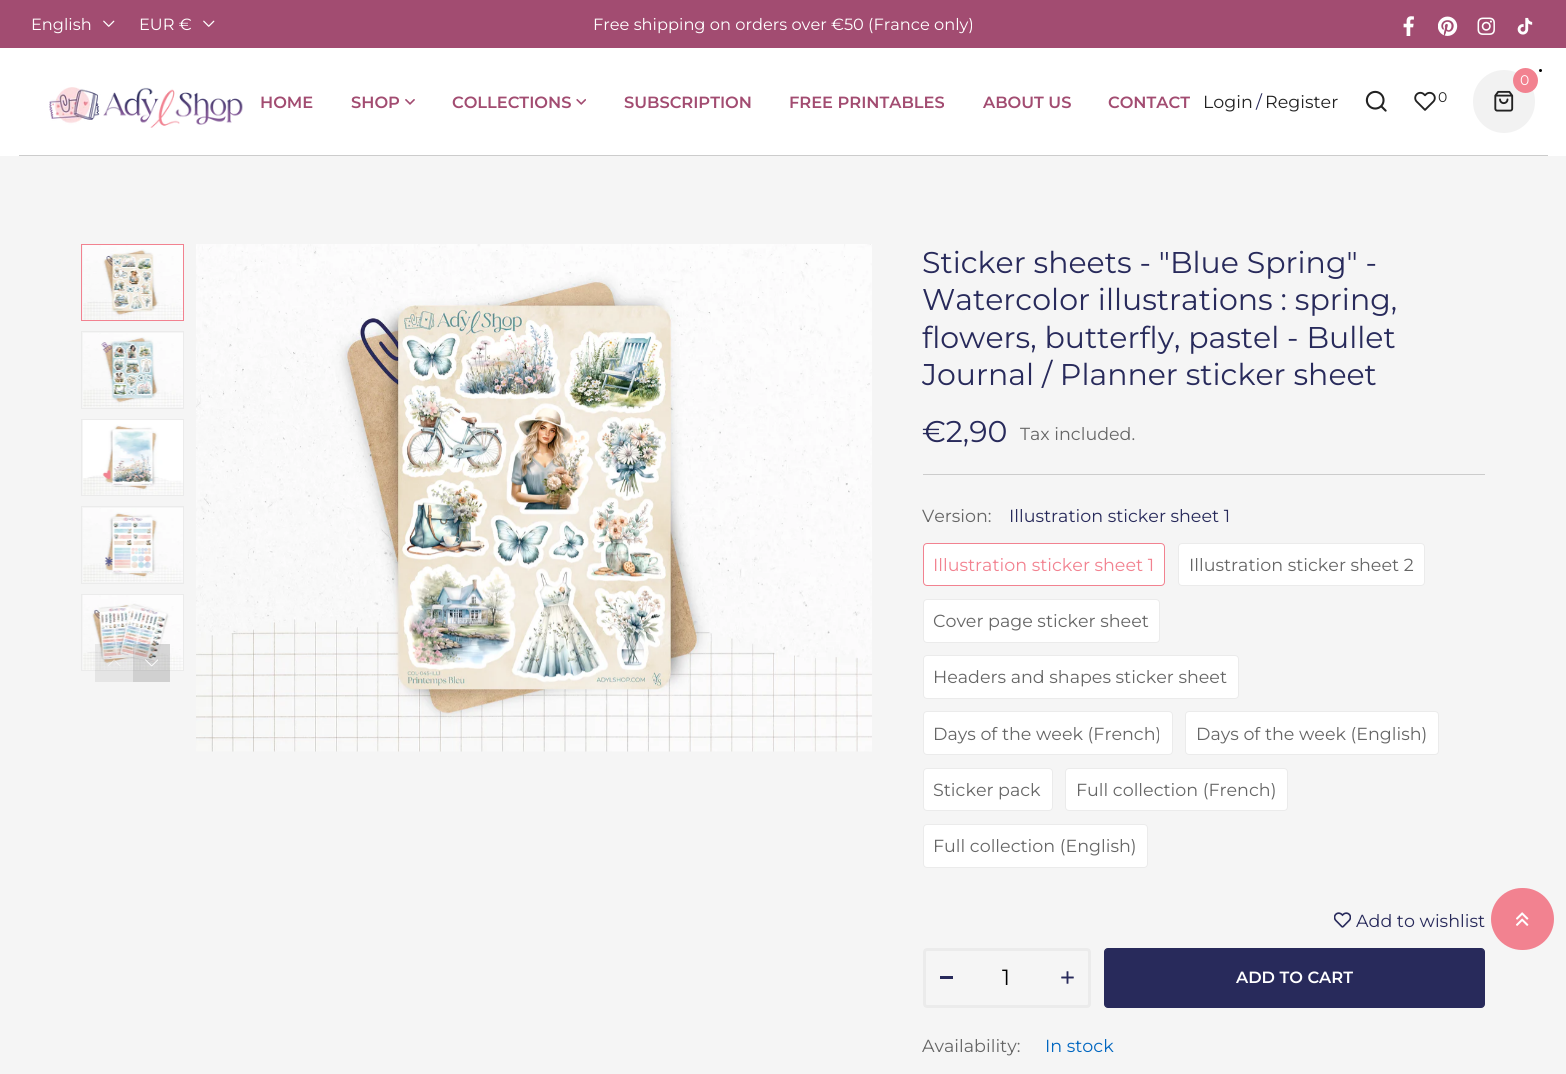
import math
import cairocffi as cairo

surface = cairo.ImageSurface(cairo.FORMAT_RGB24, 1566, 1074)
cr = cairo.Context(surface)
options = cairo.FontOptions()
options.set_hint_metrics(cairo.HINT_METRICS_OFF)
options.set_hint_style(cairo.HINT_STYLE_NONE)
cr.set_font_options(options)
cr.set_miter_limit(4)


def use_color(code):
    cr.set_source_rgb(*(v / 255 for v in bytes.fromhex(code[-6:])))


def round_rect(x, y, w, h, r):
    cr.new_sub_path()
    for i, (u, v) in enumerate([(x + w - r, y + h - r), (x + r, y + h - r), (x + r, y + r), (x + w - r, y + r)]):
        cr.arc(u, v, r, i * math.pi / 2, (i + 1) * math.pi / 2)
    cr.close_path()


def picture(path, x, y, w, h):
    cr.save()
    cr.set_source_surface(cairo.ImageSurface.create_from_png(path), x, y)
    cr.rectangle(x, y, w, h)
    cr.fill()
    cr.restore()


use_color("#ffffff")
cr.paint()
use_color("#a24c71")
cr.rectangle(0, 0, 1566, 48)
cr.fill()
cr.select_font_face("Montserrat Thin")
cr.set_font_size(16.25)
use_color("#ffffff")
cr.move_to(31, 30)
cr.show_text("English")
picture("img1.png", 103, 20, 12, 7)
cr.move_to(139, 30)
cr.show_text("EUR €")
picture("img1.png", 203, 20, 12, 7)
cr.move_to(593, 30)
cr.show_text("Free shipping on orders over €50 (France only)")
picture("img2.png", 1403, 16, 11, 20)
picture("img3.png", 1438, 16, 20, 20)
picture("img4.png", 1477, 17, 18, 18)
picture("img5.png", 1517, 17, 16, 18)
use_color("#000000")
cr.arc(1540.5, 70.5, 1.5, 0, 2 * math.pi)
cr.fill()
picture("img6.png", 49, 87, 194, 41)
cr.select_font_face("Montserrat SemiBold")
use_color("#a24c71")
cr.move_to(260, 108)
cr.show_text("HOME")
cr.move_to(351, 108)
cr.show_text("SHOP")
picture("img7.png", 405, 99, 10, 6)
cr.move_to(452, 108)
cr.show_text("COLLECTIONS")
picture("img8.png", 576, 98, 10, 7)
cr.move_to(624, 108)
cr.show_text("SUBSCRIPTION")
cr.move_to(789, 108)
cr.show_text("FREE PRINTABLES")
cr.move_to(983, 108)
cr.show_text("ABOUT US")
cr.move_to(1108, 108)
cr.show_text("CONTACT")
use_color("#f2f2f2")
round_rect(1473, 70, 62, 63, 31)
cr.fill()
picture("img9.png", 1494, 90, 20, 22)
use_color("#f28290")
cr.arc(1525.5, 80.5, 12.5, 0, 2 * math.pi)
cr.fill()
cr.select_font_face("Montserrat Thin")
cr.set_font_size(14)
use_color("#ffffff")
cr.move_to(1520, 85)
cr.show_text("0")
cr.set_font_size(17.5)
use_color("#222222")
cr.move_to(1203, 108)
cr.show_text("Login")
use_color("#282a5b")
cr.move_to(1256, 108)
cr.show_text("/")
use_color("#222222")
cr.move_to(1265, 108)
cr.show_text("Register")
picture("img10.png", 1365, 90, 22, 22)
picture("img11.png", 1414, 91, 22, 20)
cr.set_font_size(14)
cr.move_to(1438, 102)
cr.show_text("0")
use_color("#cccccc")
cr.rectangle(19, 155, 1529, 1)
cr.fill()
use_color("#f5f5f5")
cr.rectangle(0, 156, 1566, 918)
cr.fill()
cr.rectangle(81.5, 244.5, 102, 76)
use_color("#f28290")
cr.set_line_width(1)
cr.stroke()
picture("img12.png", 83, 245, 100, 75)
cr.rectangle(81.5, 331.5, 102, 77)
use_color("#ebebeb")
cr.stroke()
picture("img13.png", 83, 333, 100, 74)
cr.rectangle(81.5, 419.5, 102, 76)
cr.stroke()
picture("img14.png", 83, 420, 100, 75)
cr.rectangle(81.5, 506.5, 102, 77)
cr.stroke()
picture("img15.png", 83, 508, 100, 74)
cr.rectangle(81.5, 594.5, 102, 76)
cr.stroke()
picture("img16.png", 83, 595, 100, 75)
cr.set_source_rgba(0, 0, 0, 0.07)
cr.rectangle(95, 644, 38, 38)
cr.fill()
picture("img17.png", 108, 659, 13, 7)
cr.set_source_rgba(0, 0, 0, 0.15)
cr.rectangle(133, 644, 37, 38)
cr.fill()
picture("img18.png", 145, 659, 13, 8)
picture("img19.png", 196, 244, 676, 508)
cr.set_font_size(30)
use_color("#282a5b")
cr.move_to(922, 273)
cr.show_text("Sticker sheets - \"Blue Spring\" -")
cr.move_to(922, 310)
cr.show_text("Watercolor illustrations : spring,")
cr.move_to(922, 348)
cr.show_text("flowers, butterfly, pastel - Bullet")
cr.move_to(922, 385)
cr.show_text("Journal / Planner sticker sheet")
cr.move_to(922, 442)
cr.show_text("€2,90")
cr.set_font_size(17.5)
use_color("#666666")
cr.move_to(1020, 440)
cr.show_text("Tax included.")
use_color("#cccccc")
cr.rectangle(923, 474, 562, 1)
cr.fill()
use_color("#666666")
cr.move_to(922, 522)
cr.show_text("Version:")
use_color("#282a5b")
cr.move_to(1009, 522)
cr.show_text("Illustration sticker sheet 1")
use_color("#ffffff")
round_rect(923.5, 543.5, 241, 42, 3.5)
cr.fill_preserve()
use_color("#f28290")
cr.stroke()
cr.move_to(933, 571)
cr.show_text("Illustration sticker sheet 1")
use_color("#ffffff")
round_rect(1178.5, 543.5, 246, 42, 3.5)
cr.fill_preserve()
use_color("#ebebeb")
cr.stroke()
use_color("#666666")
cr.move_to(1189, 571)
cr.show_text("Illustration sticker sheet 2")
use_color("#ffffff")
round_rect(923.5, 599.5, 236, 43, 3.5)
cr.fill_preserve()
use_color("#ebebeb")
cr.stroke()
use_color("#666666")
cr.move_to(933, 627)
cr.show_text("Cover page sticker sheet")
use_color("#ffffff")
round_rect(923.5, 655.5, 315, 43, 3.5)
cr.fill_preserve()
use_color("#ebebeb")
cr.stroke()
use_color("#666666")
cr.move_to(933, 683)
cr.show_text("Headers and shapes sticker sheet")
use_color("#ffffff")
round_rect(923.5, 711.5, 249, 43, 3.5)
cr.fill_preserve()
use_color("#ebebeb")
cr.stroke()
use_color("#666666")
cr.move_to(933, 740)
cr.show_text("Days of the week (French)")
use_color("#ffffff")
round_rect(1185.5, 711.5, 253, 43, 3.5)
cr.fill_preserve()
use_color("#ebebeb")
cr.stroke()
use_color("#666666")
cr.move_to(1196, 740)
cr.show_text("Days of the week (English)")
use_color("#ffffff")
round_rect(923.5, 768.5, 129, 42, 3.5)
cr.fill_preserve()
use_color("#ebebeb")
cr.stroke()
use_color("#666666")
cr.move_to(933, 796)
cr.show_text("Sticker pack")
use_color("#ffffff")
round_rect(1065.5, 768.5, 222, 42, 3.5)
cr.fill_preserve()
use_color("#ebebeb")
cr.stroke()
use_color("#666666")
cr.move_to(1076, 796)
cr.show_text("Full collection (French)")
use_color("#ffffff")
round_rect(923.5, 824.5, 224, 43, 3.5)
cr.fill_preserve()
use_color("#ebebeb")
cr.stroke()
use_color("#666666")
cr.move_to(933, 852)
cr.show_text("Full collection (English)")
picture("img20.png", 1334, 912, 17, 16)
use_color("#282a5b")
cr.move_to(1356, 927)
cr.show_text("Add to wishlist")
round_rect(924.5, 949.5, 165, 57, 2.5)
use_color("#ebebeb")
cr.set_line_width(3)
cr.stroke()
use_color("#282a5b")
cr.rectangle(940, 976, 13, 3)
cr.fill()
cr.set_font_size(22)
use_color("#000000")
cr.move_to(1002, 985)
cr.show_text("1")
picture("img21.png", 1061, 971, 13, 13)
use_color("#282a5b")
round_rect(1104.5, 948.5, 380, 59, 3.5)
cr.fill_preserve()
cr.set_line_width(1)
cr.stroke()
cr.select_font_face("Montserrat SemiBold")
cr.set_font_size(16.25)
use_color("#ffffff")
cr.move_to(1236, 983)
cr.show_text("ADD TO CART")
cr.select_font_face("Montserrat Thin")
cr.set_font_size(17.5)
use_color("#666666")
cr.move_to(922, 1052)
cr.show_text("Availability:")
use_color("#0066c0")
cr.move_to(1045, 1052)
cr.show_text("In stock")
use_color("#f28290")
round_rect(1491, 888, 63, 62, 31)
cr.fill()
picture("img22.png", 1516, 912, 13, 14)
surface.write_to_png("result.png")
